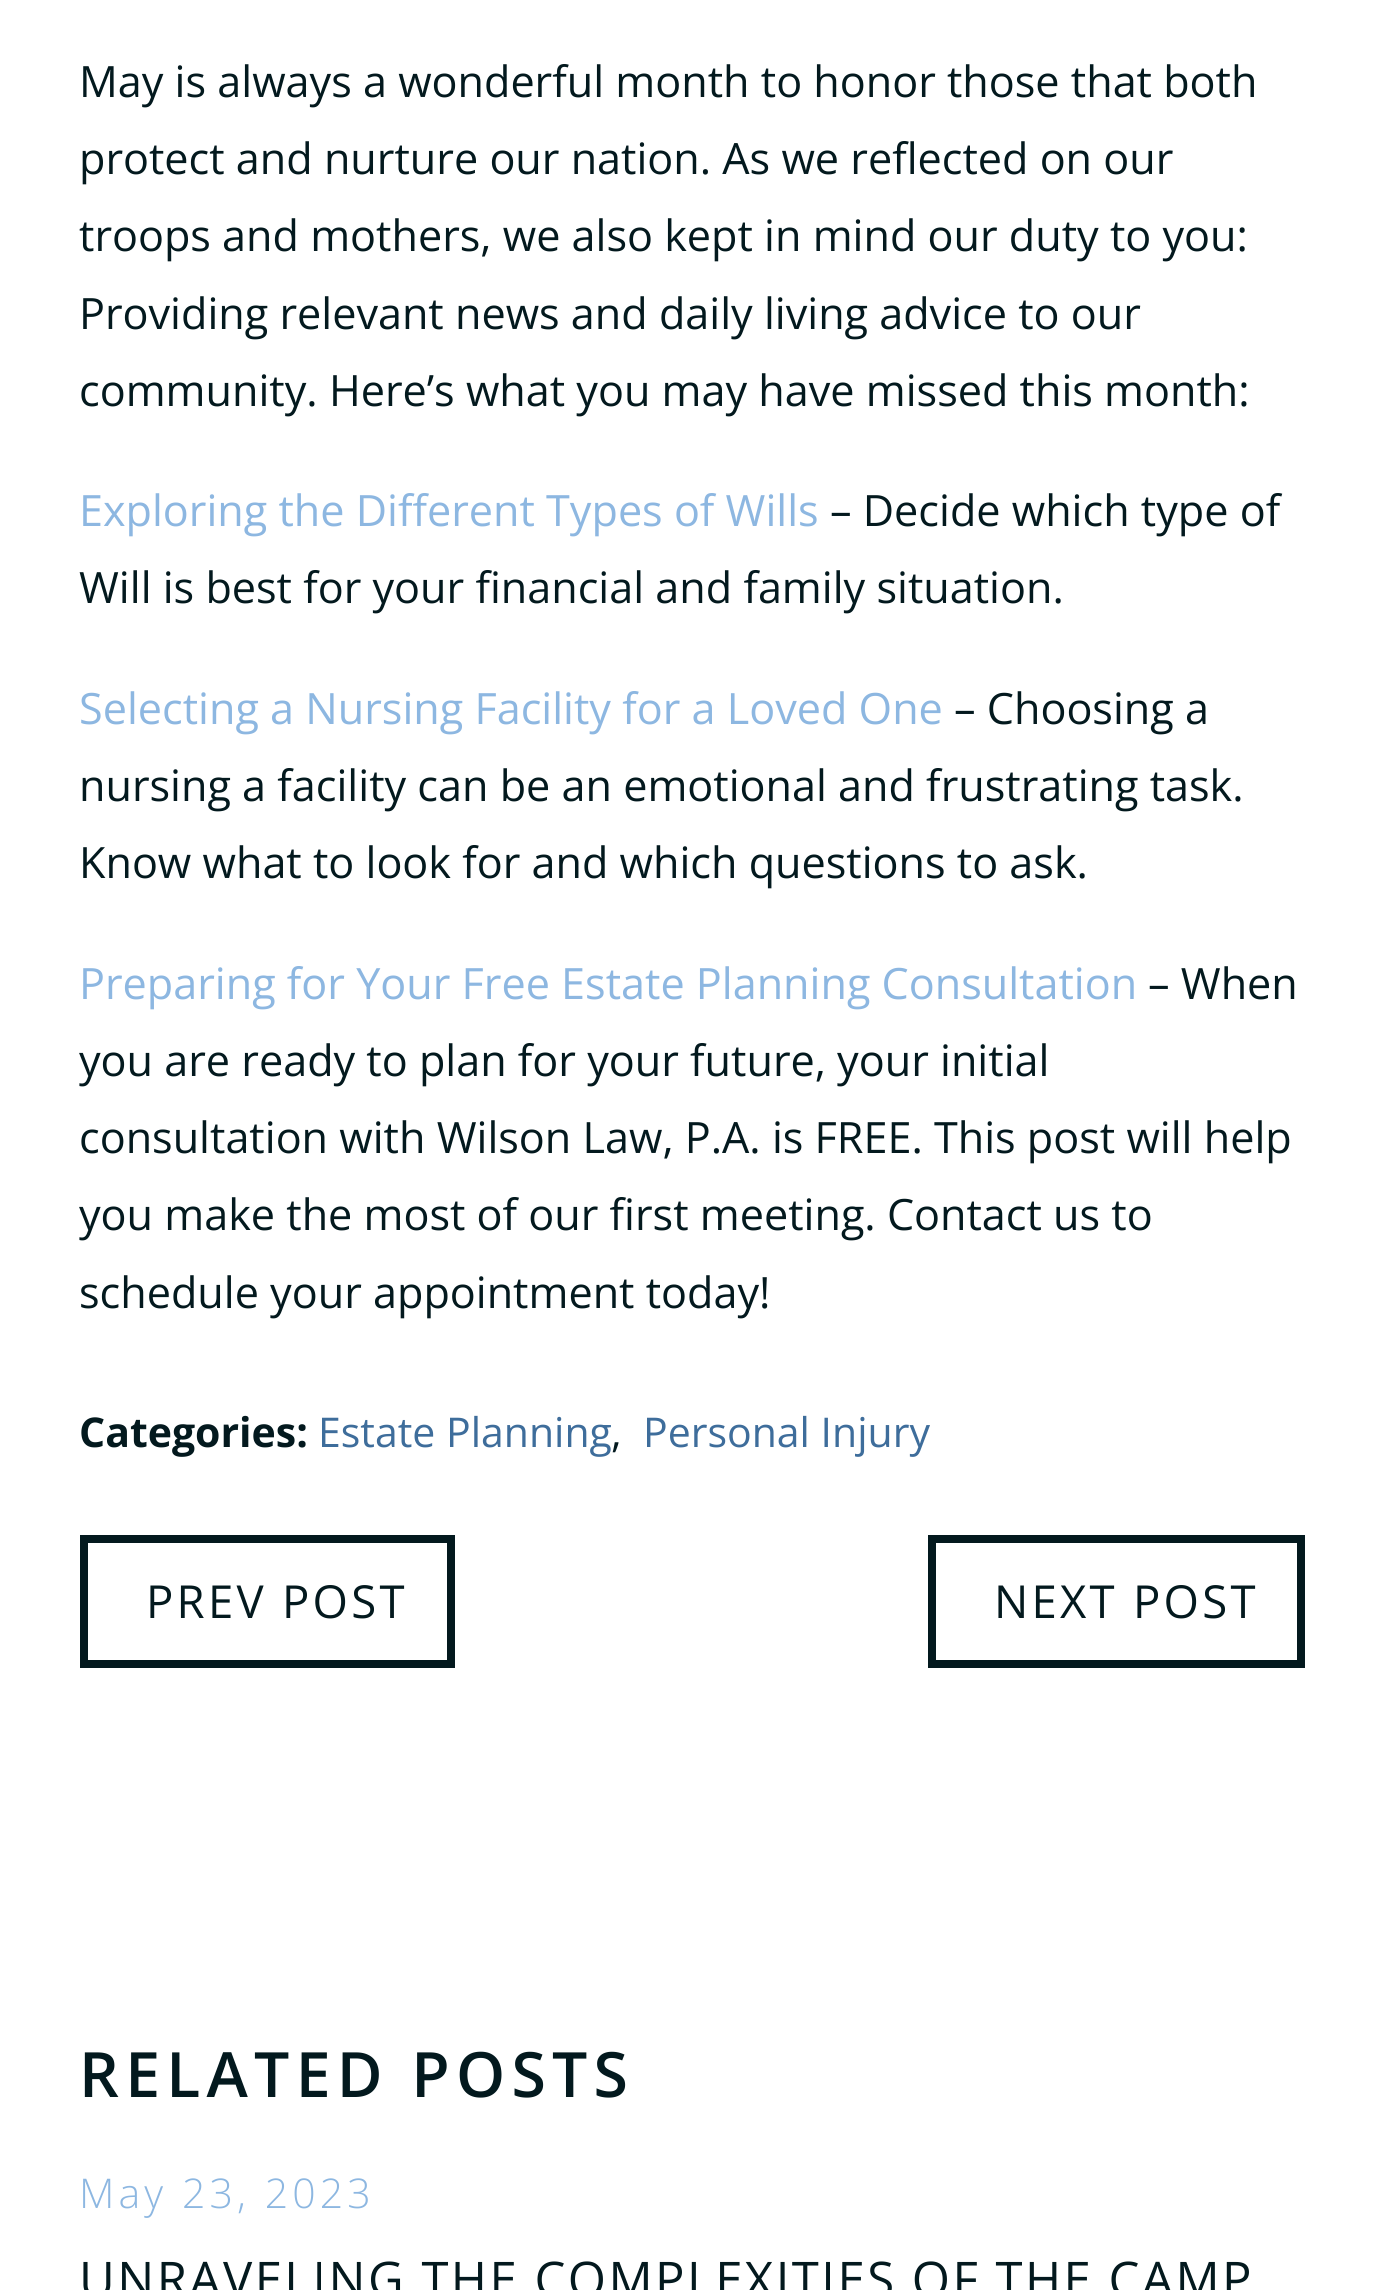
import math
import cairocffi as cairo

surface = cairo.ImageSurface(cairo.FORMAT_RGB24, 1383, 2290)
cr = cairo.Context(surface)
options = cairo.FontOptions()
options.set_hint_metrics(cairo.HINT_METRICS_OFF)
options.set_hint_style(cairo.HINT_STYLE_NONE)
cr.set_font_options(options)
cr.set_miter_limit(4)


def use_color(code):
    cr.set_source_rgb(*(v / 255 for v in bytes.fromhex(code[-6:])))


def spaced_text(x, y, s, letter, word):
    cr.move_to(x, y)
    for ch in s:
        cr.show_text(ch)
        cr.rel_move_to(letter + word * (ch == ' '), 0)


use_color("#ffffff")
cr.paint()
cr.select_font_face("Open Sans")
cr.set_font_size(43.15)
use_color("#03191e")
cr.move_to(79, 97)
cr.show_text("May is always a wonderful month to honor those that both")
cr.move_to(79, 174)
cr.show_text("protect and nurture our nation. As we reflected on our")
cr.move_to(79, 251)
cr.show_text("troops and mothers, we also kept in mind our duty to you:")
cr.move_to(79, 329)
cr.show_text("Providing relevant news and daily living advice to our")
cr.move_to(79, 406)
cr.show_text("community. Here’s what you may have missed this month:")
use_color("#8db7e1")
cr.move_to(79, 526)
cr.show_text("Exploring the Different Types of Wills")
use_color("#03191e")
cr.move_to(830, 526)
cr.show_text("– Decide which type of")
cr.move_to(79, 603)
cr.show_text("Will is best for your financial and family situation.")
use_color("#8db7e1")
cr.move_to(79, 724)
cr.show_text("Selecting a Nursing Facility for a Loved One")
use_color("#03191e")
cr.move_to(954, 724)
cr.show_text("– Choosing a")
cr.move_to(79, 801)
cr.show_text("nursing a facility can be an emotional and frustrating task.")
cr.move_to(79, 878)
cr.show_text("Know what to look for and which questions to ask.")
use_color("#8db7e1")
cr.move_to(79, 999)
cr.show_text("Preparing for Your Free Estate Planning Consultation")
use_color("#03191e")
cr.move_to(1148, 999)
cr.show_text("– When")
cr.move_to(79, 1076)
cr.show_text("you are ready to plan for your future, your initial")
cr.move_to(79, 1153)
cr.show_text("consultation with Wilson Law, P.A. is FREE. This post will help")
cr.move_to(79, 1230)
cr.show_text("you make the most of our first meeting. Contact us to")
cr.move_to(79, 1308)
cr.show_text("schedule your appointment today!")
cr.select_font_face("Open Sans", cairo.FONT_SLANT_NORMAL, cairo.FONT_WEIGHT_BOLD)
cr.set_font_size(41)
cr.move_to(79, 1447)
cr.show_text("Categories:")
cr.select_font_face("Open Sans")
use_color("#3e6d9b")
cr.move_to(318, 1447)
cr.show_text("Estate Planning")
use_color("#03191e")
cr.move_to(611, 1447)
cr.show_text(",")
use_color("#3e6d9b")
cr.move_to(643, 1447)
cr.show_text("Personal Injury")
cr.rectangle(84, 1539, 367, 125)
use_color("#03191e")
cr.set_line_width(8)
cr.stroke()
cr.set_font_size(45.5)
spaced_text(146, 1618, "PREV POST", 3.25, 0)
cr.rectangle(932, 1539, 369, 125)
cr.stroke()
spaced_text(994, 1618, "NEXT POST", 3.25, 0)
cr.select_font_face("Open Sans SemiBold")
cr.set_font_size(62.5)
spaced_text(79, 2097, "RELATED POSTS", 6.25, 0)
cr.select_font_face("Open Sans Light")
cr.set_font_size(41)
use_color("#8db7e1")
spaced_text(79, 2208, "May 23, 2023", 4.1, 0)
cr.select_font_face("Open Sans")
cr.set_font_size(49.1)
use_color("#03191e")
spaced_text(79, 2297, "UNRAVELING THE COMPLEXITIES OF THE CAMP", 2.45, 0)
surface.write_to_png("result.png")
